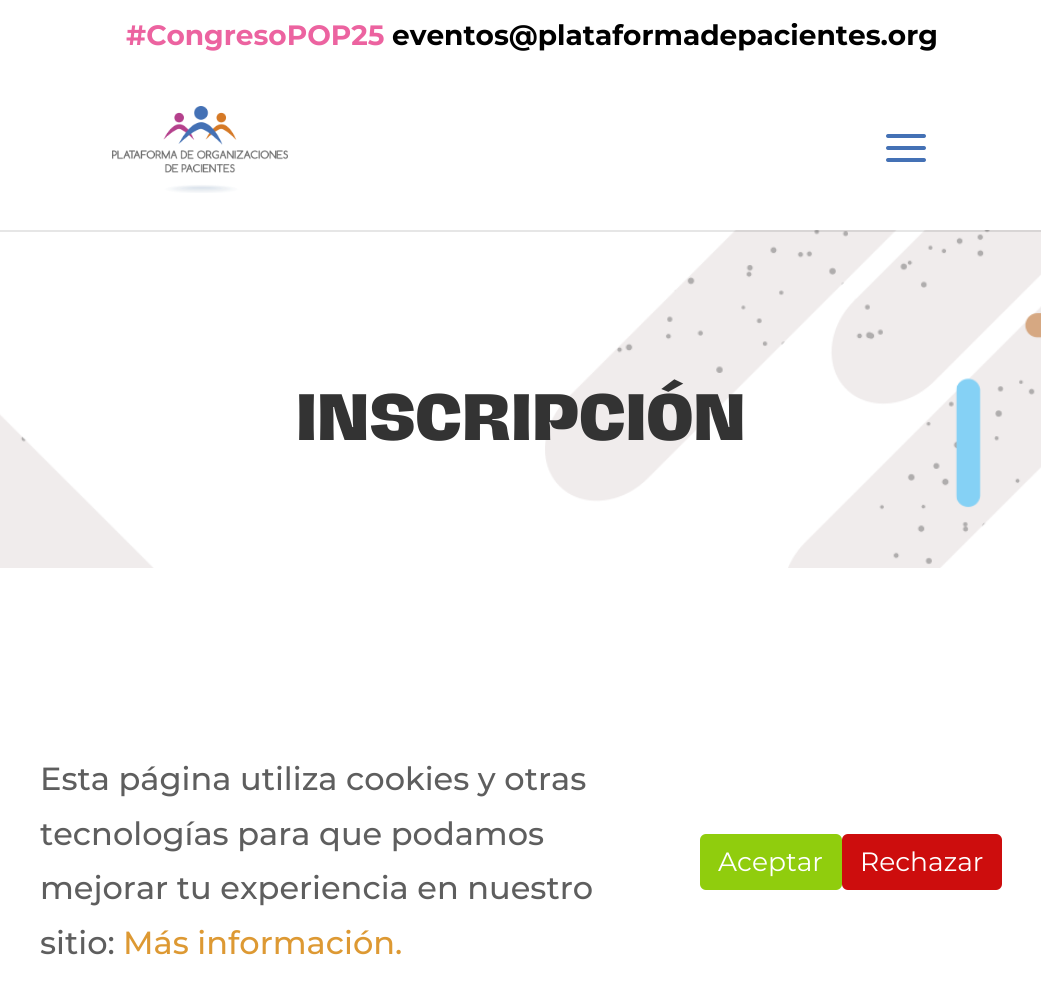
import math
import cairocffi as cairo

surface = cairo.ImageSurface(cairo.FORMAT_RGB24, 1041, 1000)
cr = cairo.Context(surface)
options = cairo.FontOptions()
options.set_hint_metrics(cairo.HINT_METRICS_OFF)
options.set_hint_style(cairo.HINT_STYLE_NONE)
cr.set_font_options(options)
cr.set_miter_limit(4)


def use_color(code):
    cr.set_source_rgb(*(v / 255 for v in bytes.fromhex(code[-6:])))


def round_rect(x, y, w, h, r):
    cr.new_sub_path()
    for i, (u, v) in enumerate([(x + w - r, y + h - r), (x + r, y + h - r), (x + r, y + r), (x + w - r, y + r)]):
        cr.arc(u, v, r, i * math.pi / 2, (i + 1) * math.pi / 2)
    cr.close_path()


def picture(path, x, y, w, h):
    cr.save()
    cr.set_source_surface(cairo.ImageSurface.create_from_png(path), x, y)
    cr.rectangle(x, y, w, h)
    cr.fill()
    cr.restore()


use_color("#ffffff")
cr.paint()
cr.select_font_face("Montserrat", cairo.FONT_SLANT_NORMAL, cairo.FONT_WEIGHT_BOLD)
cr.set_font_size(28)
use_color("#ec63a0")
cr.move_to(126, 45)
cr.show_text("#CongresoPOP25")
use_color("#000000")
cr.move_to(392, 45)
cr.show_text("eventos@plataformadepacientes.org")
picture("img3.png", 0, 230, 1041, 338)
cr.set_source_rgba(0, 0, 0, 0.1)
cr.rectangle(0, 230, 1041, 2)
cr.fill()
picture("img1.png", 112, 106, 176, 87)
picture("img2.png", 886, 134, 40, 28)
cr.select_font_face("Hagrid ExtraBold")
cr.set_font_size(60)
use_color("#333333")
cr.move_to(296, 440)
cr.show_text("INSCRIPCIÓN")
cr.select_font_face("Montserrat Medium")
cr.set_font_size(32)
use_color("#5e5e5e")
cr.move_to(40, 790)
cr.show_text("Esta página utiliza cookies y otras")
cr.move_to(40, 845)
cr.show_text("tecnologías para que podamos")
cr.move_to(40, 899)
cr.show_text("mejorar tu experiencia en nuestro")
cr.move_to(40, 954)
cr.show_text("sitio:")
use_color("#dd9933")
cr.move_to(123, 954)
cr.show_text("Más información.")
use_color("#90cd0d")
round_rect(700, 834, 142, 56, 6)
cr.fill()
cr.select_font_face("Montserrat")
cr.set_font_size(26.5)
use_color("#ffffff")
cr.move_to(718, 871)
cr.show_text("Aceptar")
use_color("#cd0d0d")
round_rect(842, 834, 160, 56, 6)
cr.fill()
use_color("#ffffff")
cr.move_to(860, 871)
cr.show_text("Rechazar")
surface.write_to_png("result.png")
